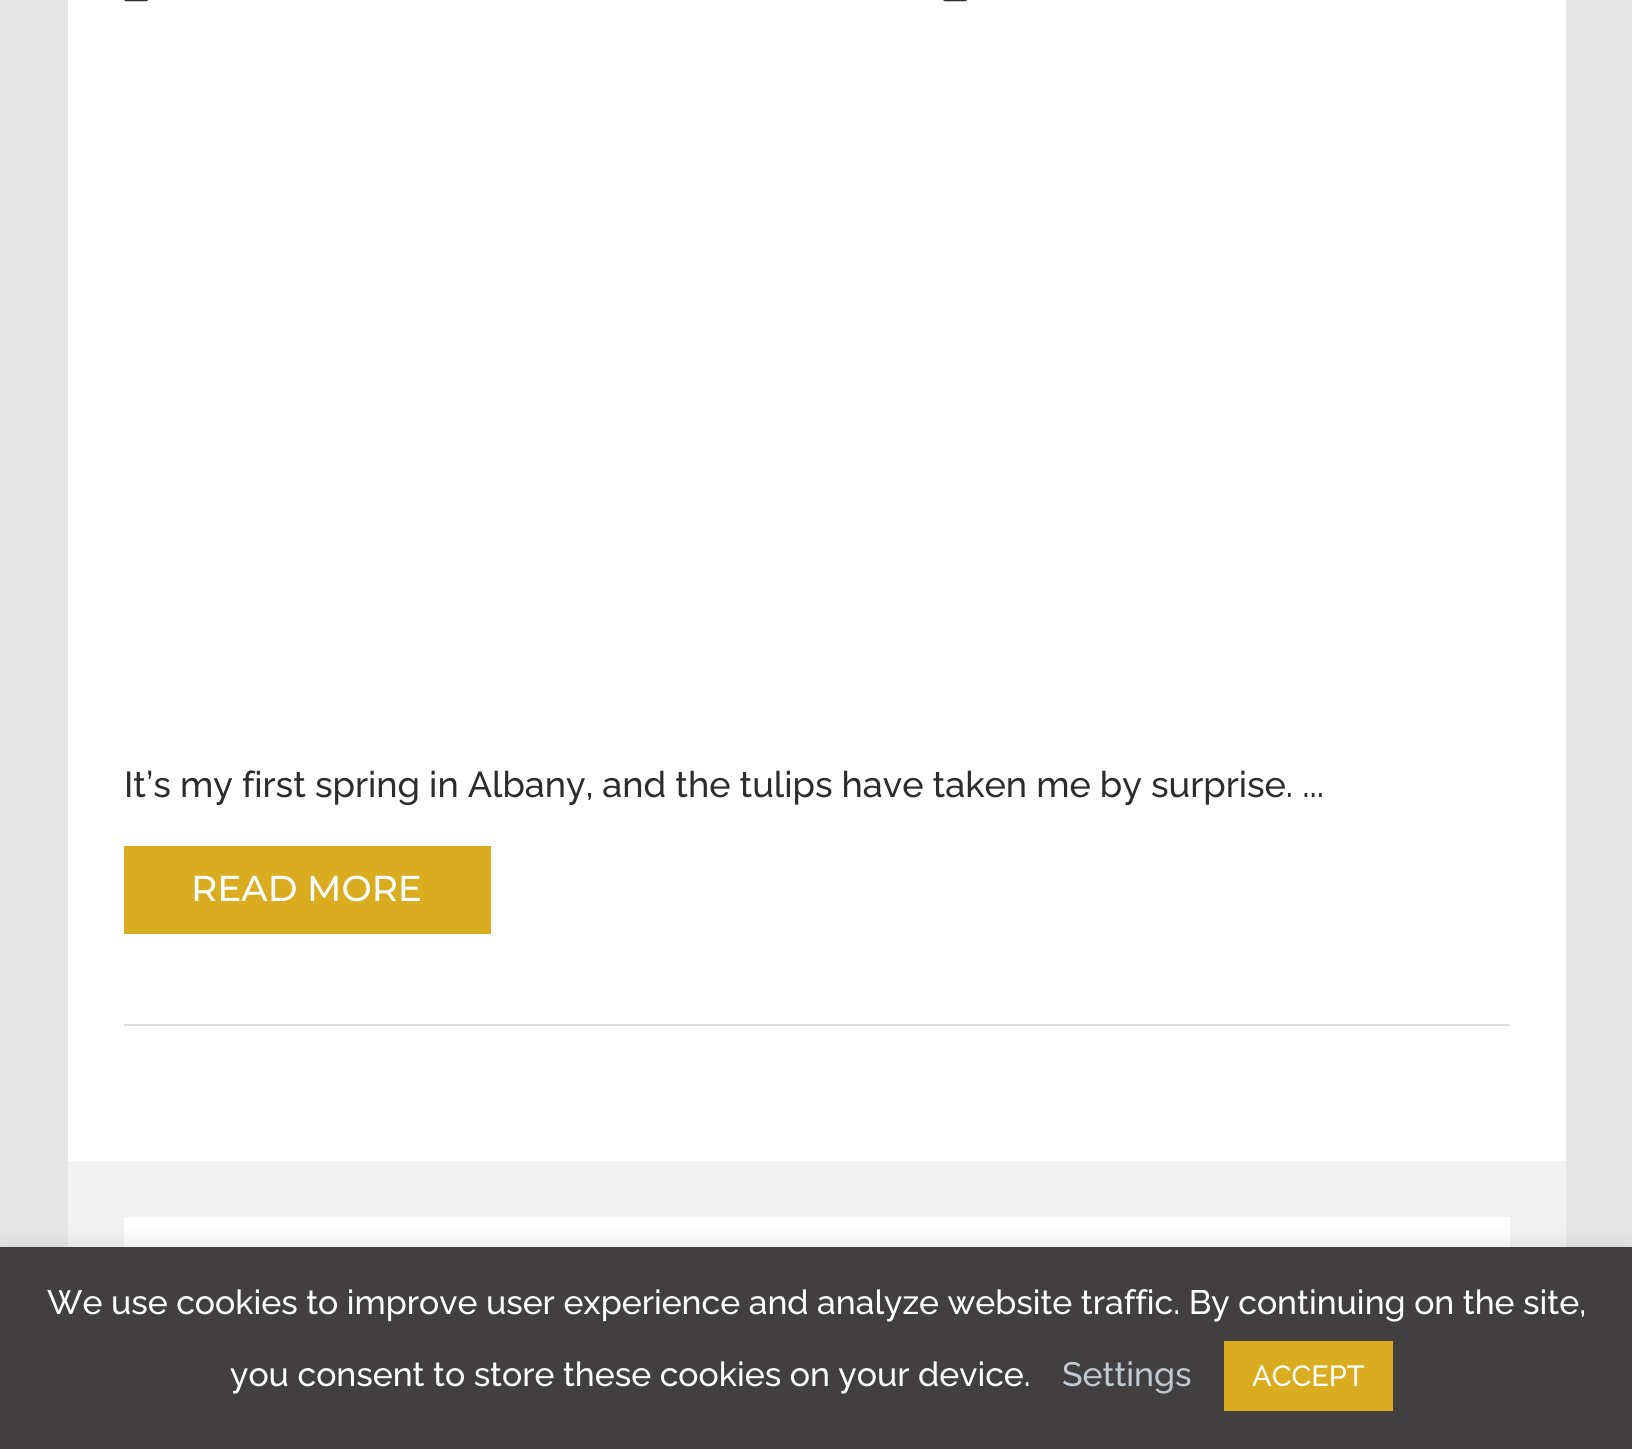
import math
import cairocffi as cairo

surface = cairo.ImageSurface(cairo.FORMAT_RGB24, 1632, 1449)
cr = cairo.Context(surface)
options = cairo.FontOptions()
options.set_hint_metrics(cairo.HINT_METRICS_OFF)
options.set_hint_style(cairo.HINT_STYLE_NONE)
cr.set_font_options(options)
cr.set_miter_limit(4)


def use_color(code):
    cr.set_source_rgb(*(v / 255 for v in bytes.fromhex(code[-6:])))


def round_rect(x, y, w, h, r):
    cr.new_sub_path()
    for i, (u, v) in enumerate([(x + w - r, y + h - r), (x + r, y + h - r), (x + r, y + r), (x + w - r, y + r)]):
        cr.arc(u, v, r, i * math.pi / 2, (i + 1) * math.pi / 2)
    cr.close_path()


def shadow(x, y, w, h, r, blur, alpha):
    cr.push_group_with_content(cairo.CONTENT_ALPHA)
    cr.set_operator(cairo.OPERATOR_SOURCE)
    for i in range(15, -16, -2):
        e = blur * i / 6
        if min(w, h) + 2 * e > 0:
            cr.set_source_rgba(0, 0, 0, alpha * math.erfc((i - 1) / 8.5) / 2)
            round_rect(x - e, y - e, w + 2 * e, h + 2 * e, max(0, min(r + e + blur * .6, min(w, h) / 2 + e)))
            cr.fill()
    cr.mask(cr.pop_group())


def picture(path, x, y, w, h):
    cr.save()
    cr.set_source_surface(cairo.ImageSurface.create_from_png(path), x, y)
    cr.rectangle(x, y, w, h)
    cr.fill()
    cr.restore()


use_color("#e6e6e6")
cr.paint()
use_color("#ffffff")
cr.rectangle(68, 0, 1498, 1161)
cr.fill()
use_color("#dedede")
cr.rectangle(124, 1024, 1386, 2)
cr.fill()
picture("img1.png", 124, 0, 24, 2)
picture("img1.png", 943, 0, 24, 2)
cr.select_font_face("Raleway Medium")
cr.set_font_size(36)
use_color("#2e2b2c")
cr.move_to(124, 797)
cr.show_text("It’s my first spring in Albany, and the tulips have taken me by surprise. ...")
use_color("#daac1f")
cr.rectangle(124, 846, 367, 88)
cr.fill()
cr.select_font_face("Montserrat Medium")
use_color("#ffffff")
cr.move_to(191, 901)
cr.show_text("READ MORE")
use_color("#f2f2f2")
cr.rectangle(68, 1161, 1498, 86)
cr.fill()
use_color("#ffffff")
cr.rectangle(124, 1217, 1386, 30)
cr.fill()
use_color("#acabab")
shadow(0, 1244, 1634, 203, 0, 11, 0.3)
use_color("#423f40")
cr.rectangle(0, 1247, 1632, 202)
cr.fill()
cr.select_font_face("Raleway Medium")
cr.set_font_size(33.75)
use_color("#ffffff")
cr.move_to(47, 1314)
cr.show_text("We use cookies to improve user experience and analyze website traffic. By continuing on the site,")
cr.move_to(230, 1386)
cr.show_text("you consent to store these cookies on your device.")
use_color("#c1cad1")
cr.move_to(1062, 1386)
cr.show_text("Settings")
use_color("#daac1f")
cr.rectangle(1224, 1341, 169, 70)
cr.fill()
cr.set_font_size(29)
use_color("#ffffff")
cr.move_to(1252, 1386)
cr.show_text("ACCEPT")
surface.write_to_png("result.png")
